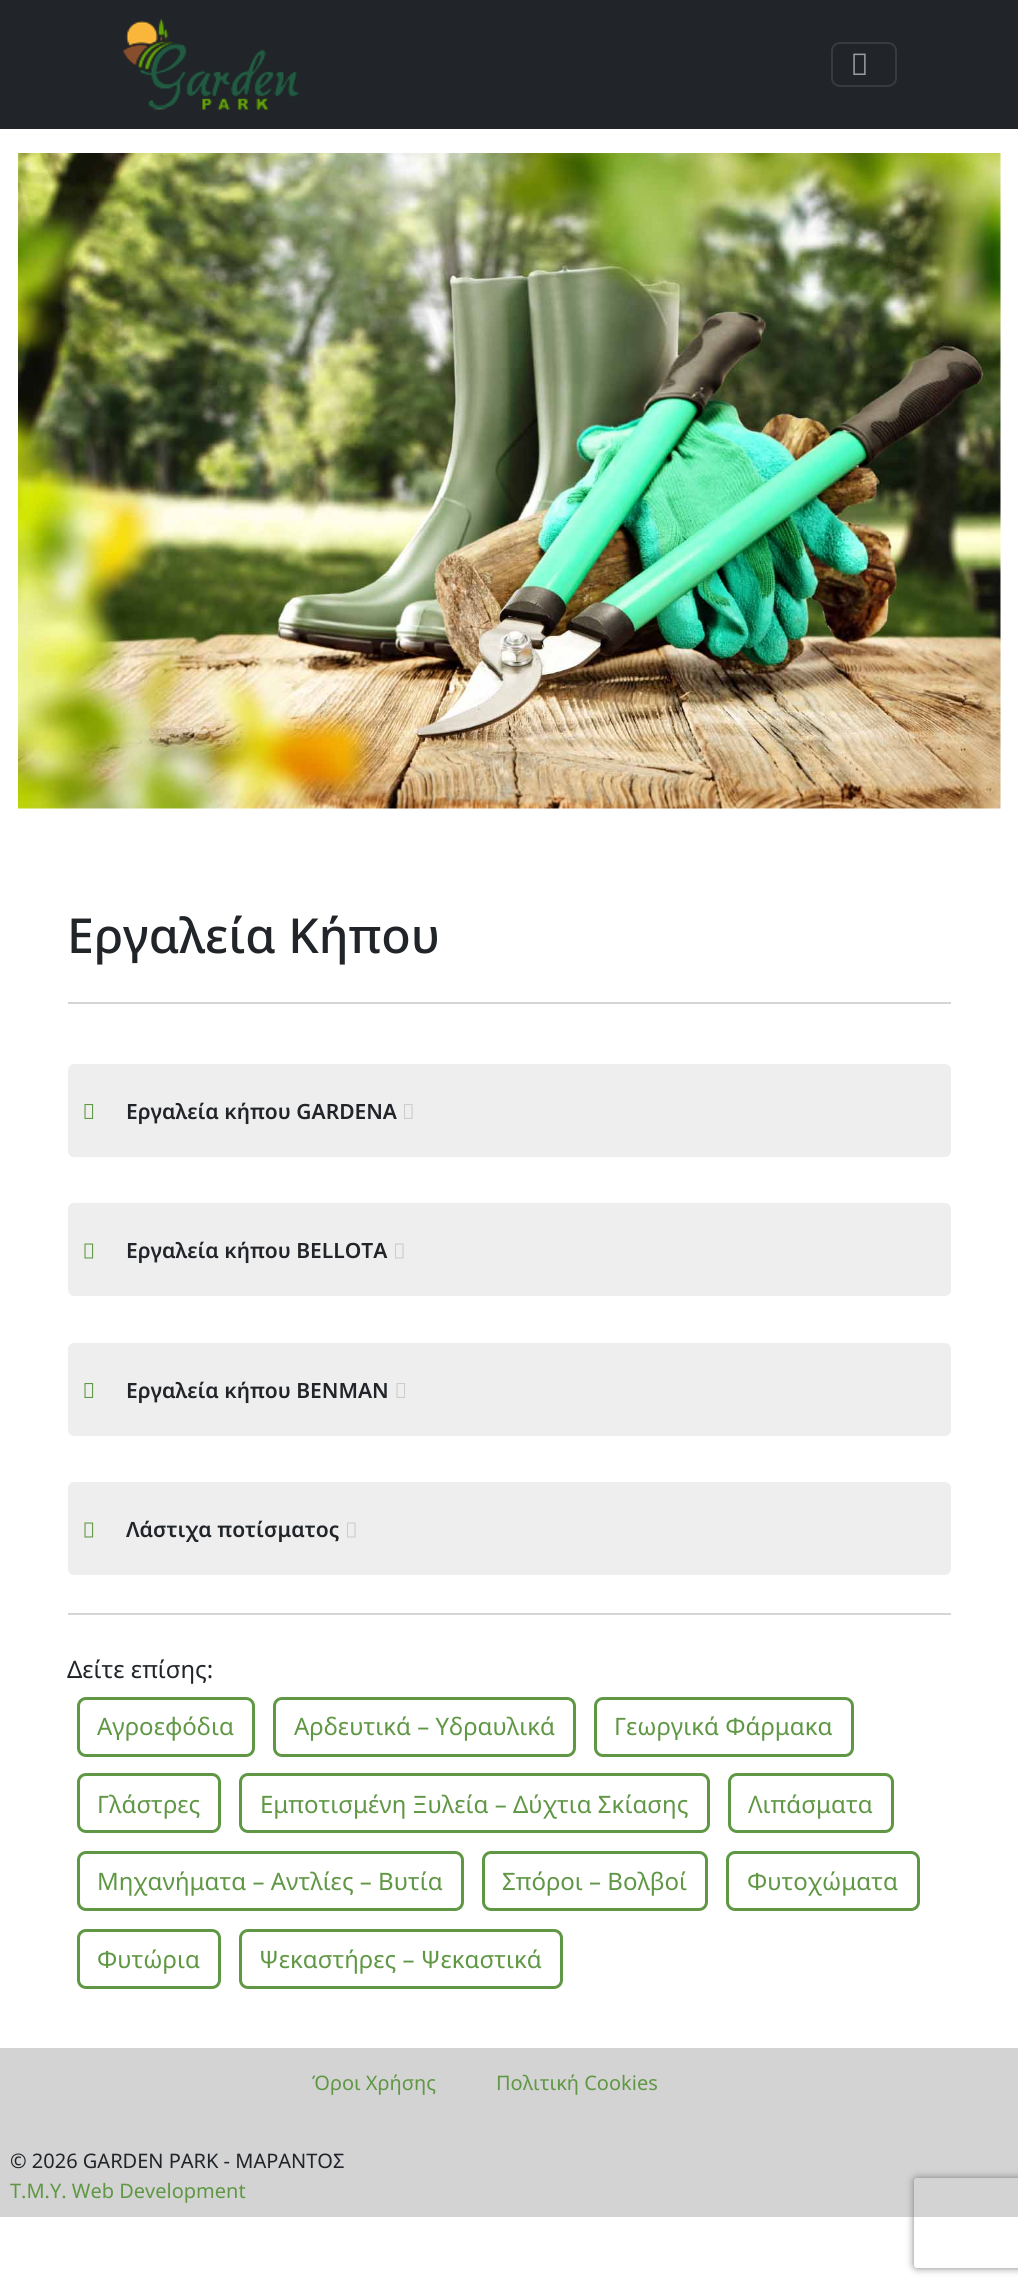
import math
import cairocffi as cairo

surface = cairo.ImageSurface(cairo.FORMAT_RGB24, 1018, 2288)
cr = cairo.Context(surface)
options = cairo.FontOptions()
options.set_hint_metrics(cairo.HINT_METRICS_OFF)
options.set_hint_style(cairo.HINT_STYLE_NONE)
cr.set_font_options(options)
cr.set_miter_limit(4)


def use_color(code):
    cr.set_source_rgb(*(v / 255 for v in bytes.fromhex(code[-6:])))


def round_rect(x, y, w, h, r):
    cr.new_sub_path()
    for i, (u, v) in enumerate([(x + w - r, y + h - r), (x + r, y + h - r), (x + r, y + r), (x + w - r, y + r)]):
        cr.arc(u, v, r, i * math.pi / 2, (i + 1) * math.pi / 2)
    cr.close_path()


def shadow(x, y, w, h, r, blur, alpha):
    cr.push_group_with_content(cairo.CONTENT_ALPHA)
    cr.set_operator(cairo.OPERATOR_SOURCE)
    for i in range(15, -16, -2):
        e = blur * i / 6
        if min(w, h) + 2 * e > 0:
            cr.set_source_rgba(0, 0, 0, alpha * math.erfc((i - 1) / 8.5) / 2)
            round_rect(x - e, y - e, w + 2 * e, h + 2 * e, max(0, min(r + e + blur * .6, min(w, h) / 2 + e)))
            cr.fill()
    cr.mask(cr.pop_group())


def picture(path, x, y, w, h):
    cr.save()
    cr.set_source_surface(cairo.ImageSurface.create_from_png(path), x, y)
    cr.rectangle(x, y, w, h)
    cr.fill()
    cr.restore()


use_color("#ffffff")
cr.paint()
use_color("#212529")
cr.rectangle(0, 0, 1018, 129)
cr.fill()
picture("img1.png", 123, 19, 176, 91)
round_rect(832, 43, 64, 43, 8)
use_color("#373b3e")
cr.stroke()
picture("img2.png", 853, 53, 13, 22)
picture("img3.png", 18, 153, 983, 656)
cr.select_font_face("Noto Sans Medium")
cr.set_font_size(48.25)
use_color("#212529")
cr.move_to(67, 953)
cr.show_text("Εργαλεία Κήπου")
use_color("#d5d5d5")
cr.rectangle(68, 1002, 883, 2)
cr.fill()
use_color("#eeeeee")
round_rect(68, 1064, 883, 93, 6)
cr.fill()
picture("img4.png", 84, 1104, 10, 15)
cr.select_font_face("Noto Sans SemiBold")
cr.set_font_size(21)
use_color("#212529")
cr.move_to(126, 1119)
cr.show_text("Εργαλεία κήπου GARDENA")
picture("img5.png", 404, 1104, 9, 15)
use_color("#eeeeee")
round_rect(68, 1203, 883, 93, 6)
cr.fill()
picture("img6.png", 84, 1243, 10, 16)
use_color("#212529")
cr.move_to(126, 1258)
cr.show_text("Εργαλεία κήπου BELLOTA")
picture("img7.png", 395, 1243, 9, 16)
use_color("#eeeeee")
round_rect(68, 1343, 883, 93, 6)
cr.fill()
picture("img4.png", 84, 1383, 10, 15)
use_color("#212529")
cr.move_to(126, 1398)
cr.show_text("Εργαλεία κήπου BENMAN")
picture("img8.png", 396, 1383, 9, 15)
use_color("#eeeeee")
round_rect(68, 1482, 883, 93, 6)
cr.fill()
picture("img6.png", 84, 1522, 10, 16)
use_color("#212529")
cr.move_to(126, 1537)
cr.show_text("Λάστιχα ποτίσματος")
picture("img7.png", 347, 1522, 9, 16)
use_color("#d5d5d5")
cr.rectangle(68, 1613, 883, 2)
cr.fill()
cr.select_font_face("Noto Sans")
cr.set_font_size(24)
use_color("#212529")
cr.move_to(67, 1678)
cr.show_text("Δείτε επίσης:")
round_rect(78.5, 1698.5, 175, 57, 7.5)
use_color("#5f9744")
cr.set_line_width(3)
cr.stroke()
cr.move_to(97, 1735)
cr.show_text("Αγροεφόδια")
round_rect(274.5, 1698.5, 300, 57, 7.5)
cr.stroke()
cr.move_to(294, 1735)
cr.show_text("Αρδευτικά – Υδραυλικά")
round_rect(595.5, 1698.5, 257, 57, 7.5)
cr.stroke()
cr.move_to(614, 1735)
cr.show_text("Γεωργικά Φάρμακα")
round_rect(78.5, 1774.5, 141, 57, 7.5)
cr.stroke()
cr.move_to(97, 1813)
cr.show_text("Γλάστρες")
round_rect(240.5, 1774.5, 468, 57, 7.5)
cr.stroke()
cr.move_to(260, 1813)
cr.show_text("Εμποτισμένη Ξυλεία – Δύχτια Σκίασης")
round_rect(729.5, 1774.5, 163, 57, 7.5)
cr.stroke()
cr.move_to(748, 1813)
cr.show_text("Λιπάσματα")
round_rect(78.5, 1852.5, 384, 57, 7.5)
cr.stroke()
cr.move_to(97, 1890)
cr.show_text("Μηχανήματα – Αντλίες – Βυτία")
round_rect(483.5, 1852.5, 223, 57, 7.5)
cr.stroke()
cr.move_to(502, 1890)
cr.show_text("Σπόροι – Βολβοί")
round_rect(727.5, 1852.5, 191, 57, 7.5)
cr.stroke()
cr.move_to(747, 1890)
cr.show_text("Φυτοχώματα")
round_rect(78.5, 1930.5, 141, 57, 7.5)
cr.stroke()
cr.move_to(97, 1968)
cr.show_text("Φυτώρια")
round_rect(240.5, 1930.5, 321, 57, 7.5)
cr.stroke()
cr.move_to(259, 1968)
cr.show_text("Ψεκαστήρες – Ψεκαστικά")
use_color("#d3d3d3")
cr.rectangle(0, 2048, 1018, 169)
cr.fill()
cr.set_font_size(20)
use_color("#5f9744")
cr.move_to(312, 2090)
cr.show_text("Όροι Χρήσης")
cr.move_to(496, 2090)
cr.show_text("Πολιτική Cookies")
use_color("#212529")
cr.move_to(10, 2168)
cr.show_text("© 2026 GARDEN PARK - ΜΑΡΑΝΤΟΣ")
use_color("#5f9744")
cr.move_to(10, 2198)
cr.show_text("T.M.Y. Web Development")
cr.save()
cr.set_fill_rule(cairo.FILL_RULE_EVEN_ODD)
cr.new_path()
cr.move_to(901, 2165)
cr.line_to(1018, 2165)
cr.line_to(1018, 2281)
cr.line_to(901, 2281)
cr.close_path()
cr.move_to(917, 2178)
cr.line_to(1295, 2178)
cr.curve_to(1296.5, 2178, 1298, 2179.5, 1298, 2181)
cr.line_to(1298, 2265)
cr.curve_to(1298, 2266.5, 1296.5, 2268, 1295, 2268)
cr.line_to(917, 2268)
cr.curve_to(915.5, 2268, 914, 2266.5, 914, 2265)
cr.line_to(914, 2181)
cr.curve_to(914, 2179.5, 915.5, 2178, 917, 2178)
cr.close_path()
cr.clip()
use_color("#808080")
shadow(914, 2178, 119, 90, 3, 4, 1)
cr.restore()
surface.write_to_png("result.png")
